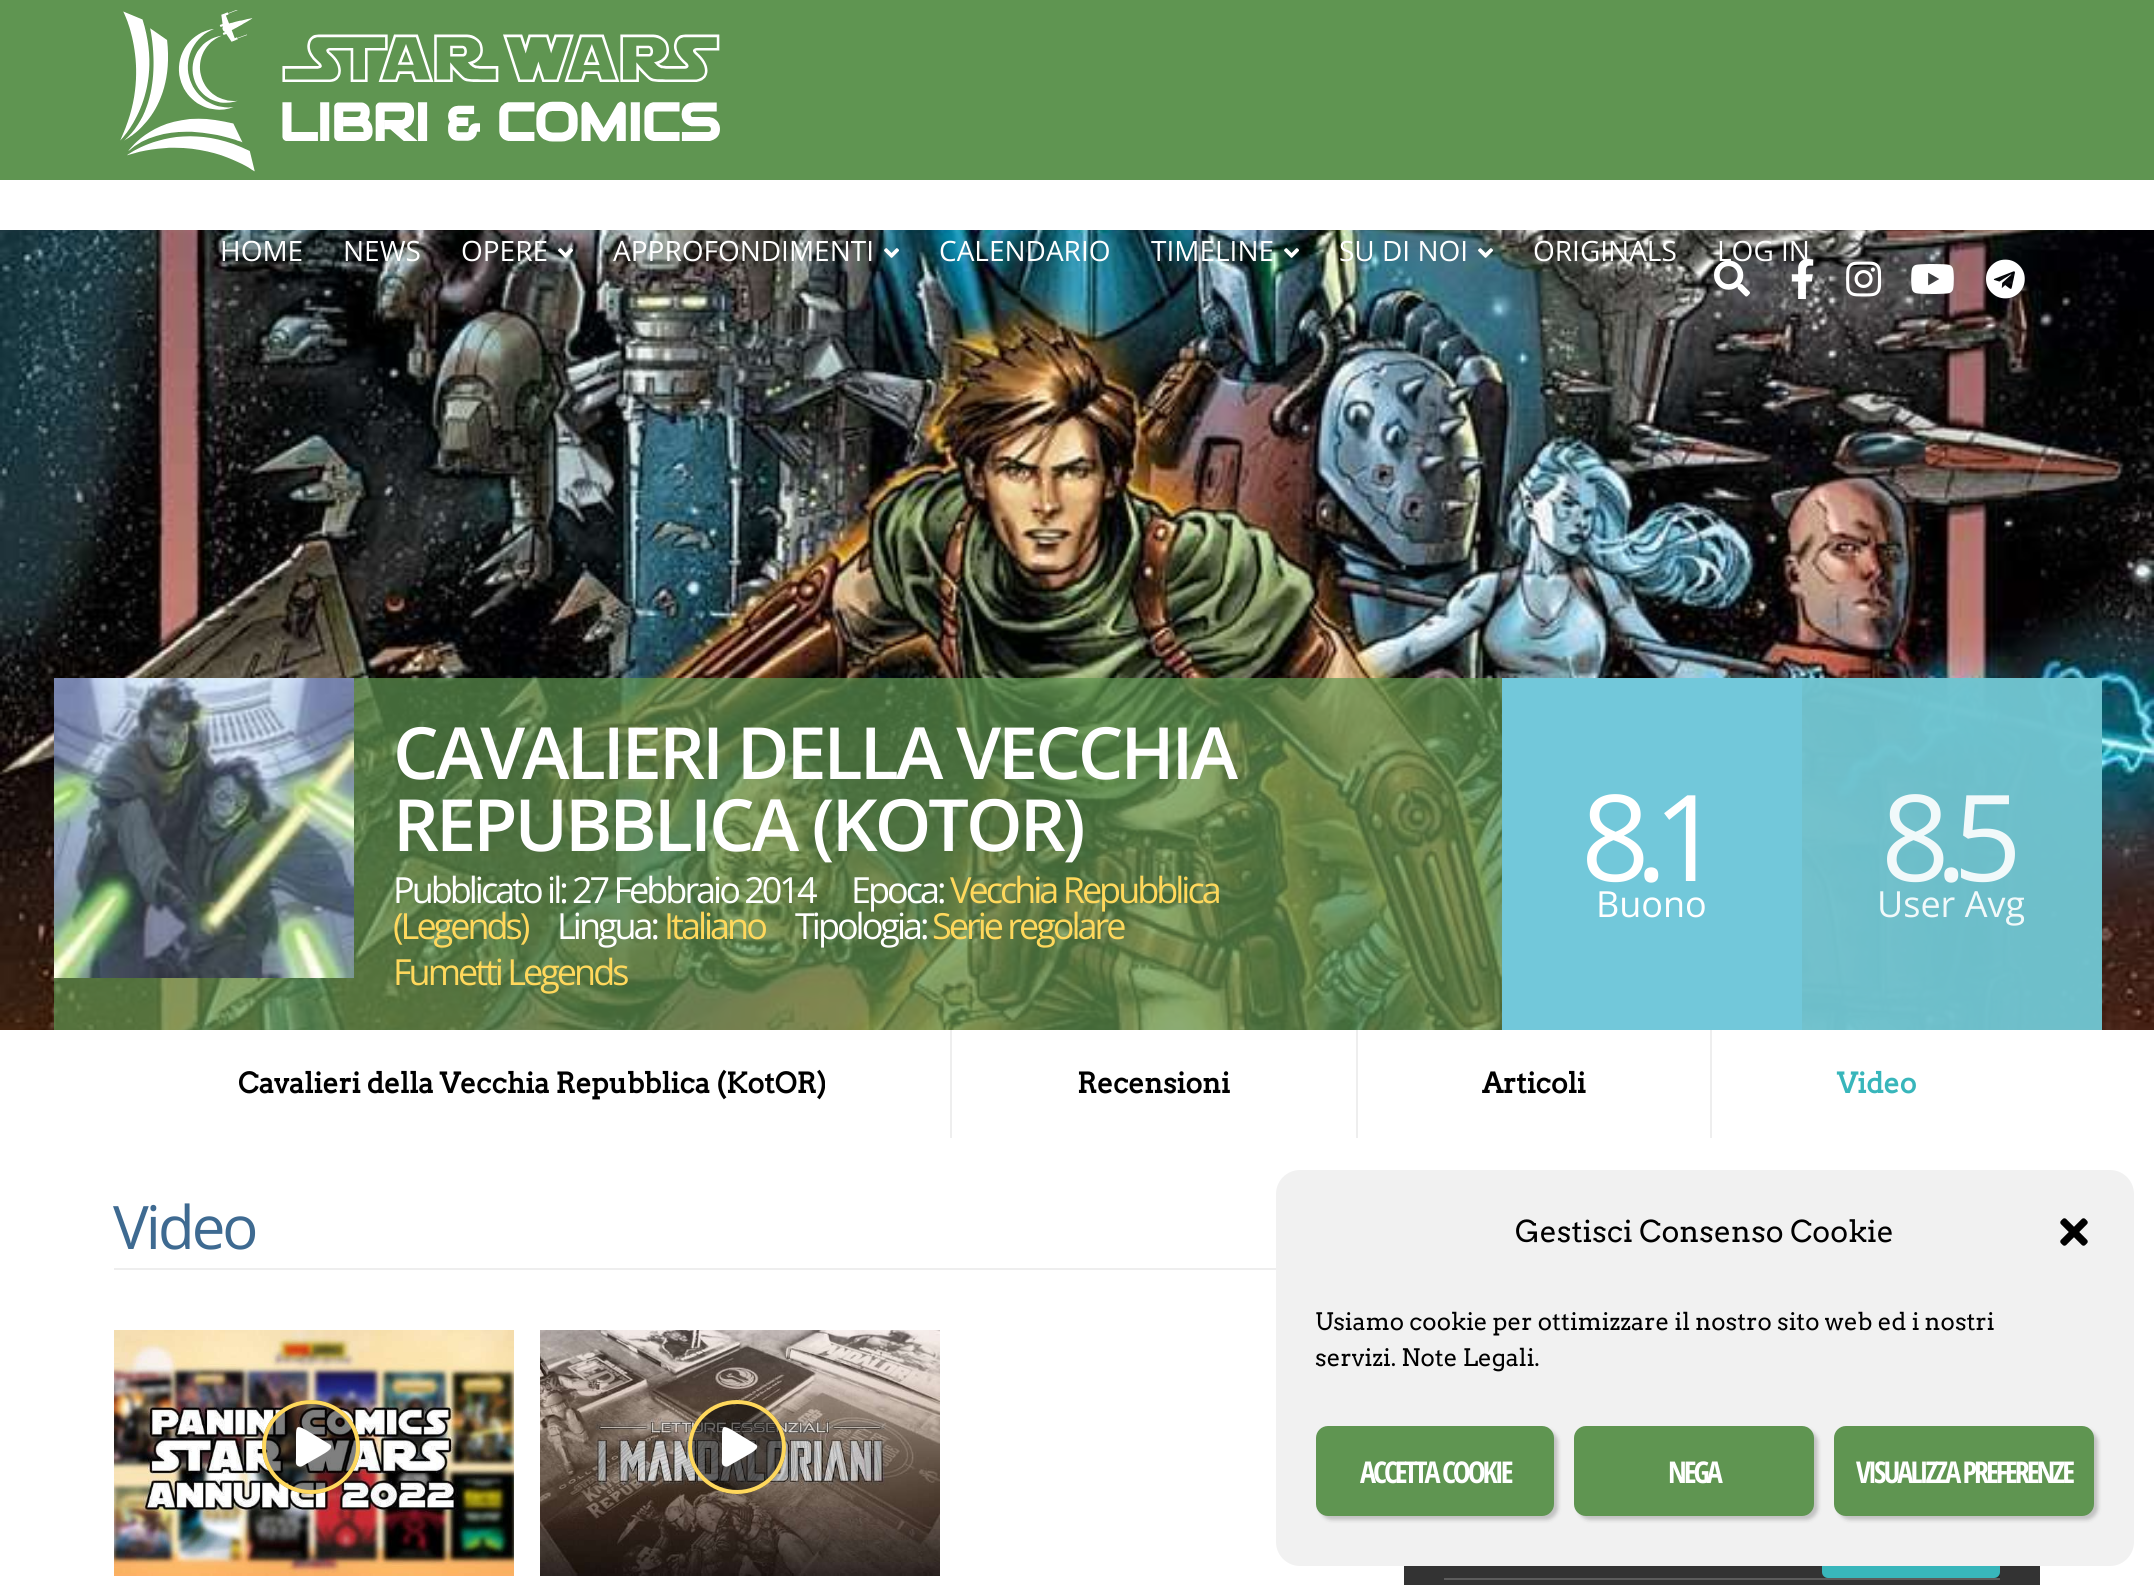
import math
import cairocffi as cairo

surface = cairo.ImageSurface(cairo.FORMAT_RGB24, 2154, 1585)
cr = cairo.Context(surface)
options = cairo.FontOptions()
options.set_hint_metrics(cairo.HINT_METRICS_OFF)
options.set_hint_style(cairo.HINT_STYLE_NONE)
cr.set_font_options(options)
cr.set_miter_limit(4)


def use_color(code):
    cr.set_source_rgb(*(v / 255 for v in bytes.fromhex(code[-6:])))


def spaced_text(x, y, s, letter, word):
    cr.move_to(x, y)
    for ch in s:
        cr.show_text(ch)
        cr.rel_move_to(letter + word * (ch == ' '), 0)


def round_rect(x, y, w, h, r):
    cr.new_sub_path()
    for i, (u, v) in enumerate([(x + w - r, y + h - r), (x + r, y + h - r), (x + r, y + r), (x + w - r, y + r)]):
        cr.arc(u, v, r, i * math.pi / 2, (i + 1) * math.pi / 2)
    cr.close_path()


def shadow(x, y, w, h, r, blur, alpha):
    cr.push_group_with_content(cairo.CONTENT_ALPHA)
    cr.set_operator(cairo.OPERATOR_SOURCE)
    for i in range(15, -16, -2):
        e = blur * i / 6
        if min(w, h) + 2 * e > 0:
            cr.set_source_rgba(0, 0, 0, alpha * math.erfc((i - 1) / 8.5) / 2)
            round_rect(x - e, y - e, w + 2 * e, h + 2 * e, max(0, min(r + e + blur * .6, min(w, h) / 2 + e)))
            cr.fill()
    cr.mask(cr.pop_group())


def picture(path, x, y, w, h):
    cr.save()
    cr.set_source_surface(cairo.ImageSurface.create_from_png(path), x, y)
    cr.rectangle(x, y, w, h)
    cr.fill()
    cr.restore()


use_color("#ffffff")
cr.paint()
use_color("#5f9551")
cr.rectangle(0, 0, 2154, 180)
cr.fill()
picture("img1.png", 120, 10, 600, 162)
picture("img11.png", 0, 230, 2154, 800)
cr.select_font_face("Open Sans")
cr.set_font_size(28)
use_color("#ffffff")
cr.move_to(220, 261)
cr.show_text("HOME")
cr.move_to(343, 261)
cr.show_text("NEWS")
cr.move_to(461, 261)
cr.show_text("OPERE")
picture("img2.png", 558, 248, 15, 10)
cr.move_to(613, 261)
cr.show_text("APPROFONDIMENTI")
picture("img3.png", 884, 248, 15, 10)
cr.move_to(939, 261)
cr.show_text("CALENDARIO")
cr.move_to(1151, 261)
cr.show_text("TIMELINE")
picture("img4.png", 1284, 248, 15, 10)
cr.move_to(1339, 261)
cr.show_text("SU DI NOI")
picture("img5.png", 1478, 248, 15, 10)
cr.move_to(1533, 261)
cr.show_text("ORIGINALS")
picture("img6.png", 1714, 260, 36, 37)
picture("img7.png", 1791, 259, 23, 40)
cr.move_to(1717, 261)
cr.show_text("LOG IN")
picture("img8.png", 1846, 261, 36, 36)
picture("img9.png", 1911, 264, 43, 30)
picture("img10.png", 1986, 259, 39, 40)
cr.set_source_rgba(0.373, 0.584, 0.318, 0.7)
cr.rectangle(54, 678, 2048, 352)
cr.fill()
picture("img12.png", 54, 678, 300, 300)
cr.select_font_face("Open Sans SemiBold")
cr.set_font_size(72)
use_color("#ffffff")
spaced_text(393, 779, "CAVALIERI DELLA VECCHIA", -3, 0)
spaced_text(393, 851, "REPUBBLICA (KOTOR)", -3, 0)
cr.select_font_face("Open Sans")
cr.set_font_size(36)
spaced_text(393, 903, "Pubblicato il: 27 Febbraio 2014", -3, 0)
spaced_text(851, 903, "Epoca:", -3, 0)
use_color("#ffd85c")
spaced_text(950, 903, "Vecchia Repubblica", -3, 0)
spaced_text(393, 939, "(Legends)", -3, 0)
use_color("#ffffff")
spaced_text(557, 939, "Lingua:", -3, 0)
use_color("#ffd85c")
spaced_text(664, 939, "Italiano", -3, 0)
use_color("#ffffff")
spaced_text(795, 939, "Tipologia:", -3, 0)
use_color("#ffd85c")
spaced_text(932, 939, "Serie regolare", -3, 0)
spaced_text(393, 985, "Fumetti Legends", -3, 0)
use_color("#72c8da")
cr.rectangle(1502, 678, 300, 352)
cr.fill()
cr.set_font_size(120)
use_color("#ffffff")
spaced_text(1581, 881, "8.1", -14, 0)
cr.set_font_size(36)
cr.move_to(1596, 917)
cr.show_text("Buono")
cr.set_source_rgba(0.447, 0.784, 0.855, 0.9)
cr.rectangle(1802, 678, 300, 352)
cr.fill()
cr.set_font_size(120)
use_color("#f1f9fa")
spaced_text(1881, 881, "8.5", -14, 0)
cr.set_font_size(36)
cr.move_to(1877, 917)
cr.show_text("User Avg")
cr.select_font_face("Arvo", cairo.FONT_SLANT_NORMAL, cairo.FONT_WEIGHT_BOLD)
cr.set_font_size(28)
use_color("#000000")
cr.move_to(238, 1093)
cr.show_text("Cavalieri della Vecchia Repubblica (KotOR)")
use_color("#eeeeee")
cr.rectangle(950, 1030, 2, 108)
cr.fill()
use_color("#000000")
cr.move_to(1077, 1093)
cr.show_text("Recensioni")
use_color("#eeeeee")
cr.rectangle(1356, 1030, 2, 108)
cr.fill()
use_color("#000000")
cr.move_to(1482, 1093)
cr.show_text("Articoli")
use_color("#eeeeee")
cr.rectangle(1710, 1030, 2, 108)
cr.fill()
use_color("#38b6bb")
cr.move_to(1837, 1093)
cr.show_text("Video")
use_color("#eeeeee")
cr.rectangle(114, 1268, 1162, 2)
cr.fill()
cr.select_font_face("Open Sans")
cr.set_font_size(60)
use_color("#3e6a91")
spaced_text(113, 1249, "Video", -3, 0)
picture("img13.png", 114, 1330, 400, 246)
cr.set_source_rgba(0, 0, 0, 0.5)
cr.new_path()
cr.move_to(311, 1400)
cr.curve_to(338, 1400, 360, 1421, 360, 1447)
cr.curve_to(360, 1473, 338, 1494, 311, 1494)
cr.curve_to(284, 1494, 262, 1473, 262, 1447)
cr.curve_to(262, 1421, 284, 1400, 311, 1400)
cr.close_path()
cr.fill()
cr.new_path()
cr.move_to(311, 1402)
cr.curve_to(337, 1402, 358, 1422, 358, 1447)
cr.curve_to(358, 1472, 337, 1492, 311, 1492)
cr.curve_to(285, 1492, 264, 1472, 264, 1447)
cr.curve_to(264, 1422, 285, 1402, 311, 1402)
cr.close_path()
use_color("#ffd85c")
cr.set_line_width(4)
cr.stroke()
use_color("#ffffff")
cr.new_path()
cr.move_to(329, 1444)
cr.curve_to(337, 1448, 321, 1455, 320, 1456)
cr.line_to(306, 1464)
cr.curve_to(304, 1465, 301, 1468, 298, 1466)
cr.curve_to(295, 1465, 296, 1460, 296, 1458)
cr.line_to(296, 1436)
cr.curve_to(296, 1426, 297, 1425, 306, 1430)
cr.close_path()
cr.fill()
picture("img14.png", 540, 1330, 400, 246)
cr.set_source_rgba(0, 0, 0, 0.5)
cr.new_path()
cr.move_to(737, 1400)
cr.curve_to(764, 1400, 786, 1421, 786, 1447)
cr.curve_to(786, 1473, 764, 1494, 737, 1494)
cr.curve_to(710, 1494, 688, 1473, 688, 1447)
cr.curve_to(688, 1421, 710, 1400, 737, 1400)
cr.close_path()
cr.fill()
cr.new_path()
cr.move_to(737, 1402)
cr.curve_to(763, 1402, 784, 1422, 784, 1447)
cr.curve_to(784, 1472, 763, 1492, 737, 1492)
cr.curve_to(711, 1492, 690, 1472, 690, 1447)
cr.curve_to(690, 1422, 711, 1402, 737, 1402)
cr.close_path()
use_color("#ffd85c")
cr.stroke()
use_color("#ffffff")
cr.new_path()
cr.move_to(755, 1444)
cr.curve_to(763, 1448, 747, 1455, 746, 1456)
cr.line_to(732, 1464)
cr.curve_to(730, 1465, 727, 1468, 724, 1466)
cr.curve_to(721, 1465, 722, 1460, 722, 1458)
cr.line_to(722, 1436)
cr.curve_to(722, 1426, 723, 1425, 732, 1430)
cr.close_path()
cr.fill()
use_color("#333333")
cr.rectangle(1404, 1566, 636, 19)
cr.fill()
use_color("#5c5c5c")
cr.rectangle(1444, 1578, 556, 2)
cr.fill()
cr.save()
cr.rectangle(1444, 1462, 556, 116)
cr.clip()
use_color("#000000")
shadow(1826, 1530, 178, 52, 6, 2, 0.2)
cr.restore()
use_color("#38b6bb")
round_rect(1822, 1526, 178, 52, 6)
cr.fill()
use_color("#f1f1f1")
round_rect(1276, 1170, 858, 396, 24)
cr.fill()
cr.select_font_face("Arvo")
cr.set_font_size(30)
use_color("#000000")
cr.move_to(1515, 1242)
cr.show_text("Gestisci Consenso Cookie")
picture("img15.png", 2060, 1218, 28, 28)
cr.set_font_size(24)
cr.move_to(1315, 1330)
cr.show_text("Usiamo cookie per ottimizzare il nostro sito web ed i nostri")
cr.move_to(1315, 1366)
cr.show_text("servizi. Note Legali.")
use_color("#000000")
shadow(1320, 1430, 238, 90, 12, 2, 0.2)
use_color("#5f9551")
round_rect(1317, 1427, 236, 88, 11)
cr.fill_preserve()
cr.set_line_width(2)
cr.stroke()
cr.select_font_face("Open Sans Condensed", cairo.FONT_SLANT_NORMAL, cairo.FONT_WEIGHT_BOLD)
cr.set_font_size(30)
use_color("#ffffff")
spaced_text(1360, 1483, "ACCETTA COOKIE", -3, 0)
use_color("#000000")
shadow(1578, 1430, 240, 90, 12, 2, 0.2)
use_color("#5f9551")
round_rect(1575, 1427, 238, 88, 11)
cr.fill_preserve()
cr.stroke()
use_color("#ffffff")
spaced_text(1668, 1483, "NEGA", -3, 0)
use_color("#000000")
shadow(1838, 1430, 260, 90, 12, 2, 0.2)
use_color("#5f9551")
round_rect(1835, 1427, 258, 88, 11)
cr.fill_preserve()
cr.stroke()
use_color("#ffffff")
spaced_text(1856, 1483, "VISUALIZZA PREFERENZE", -3, 0)
surface.write_to_png("result.png")
